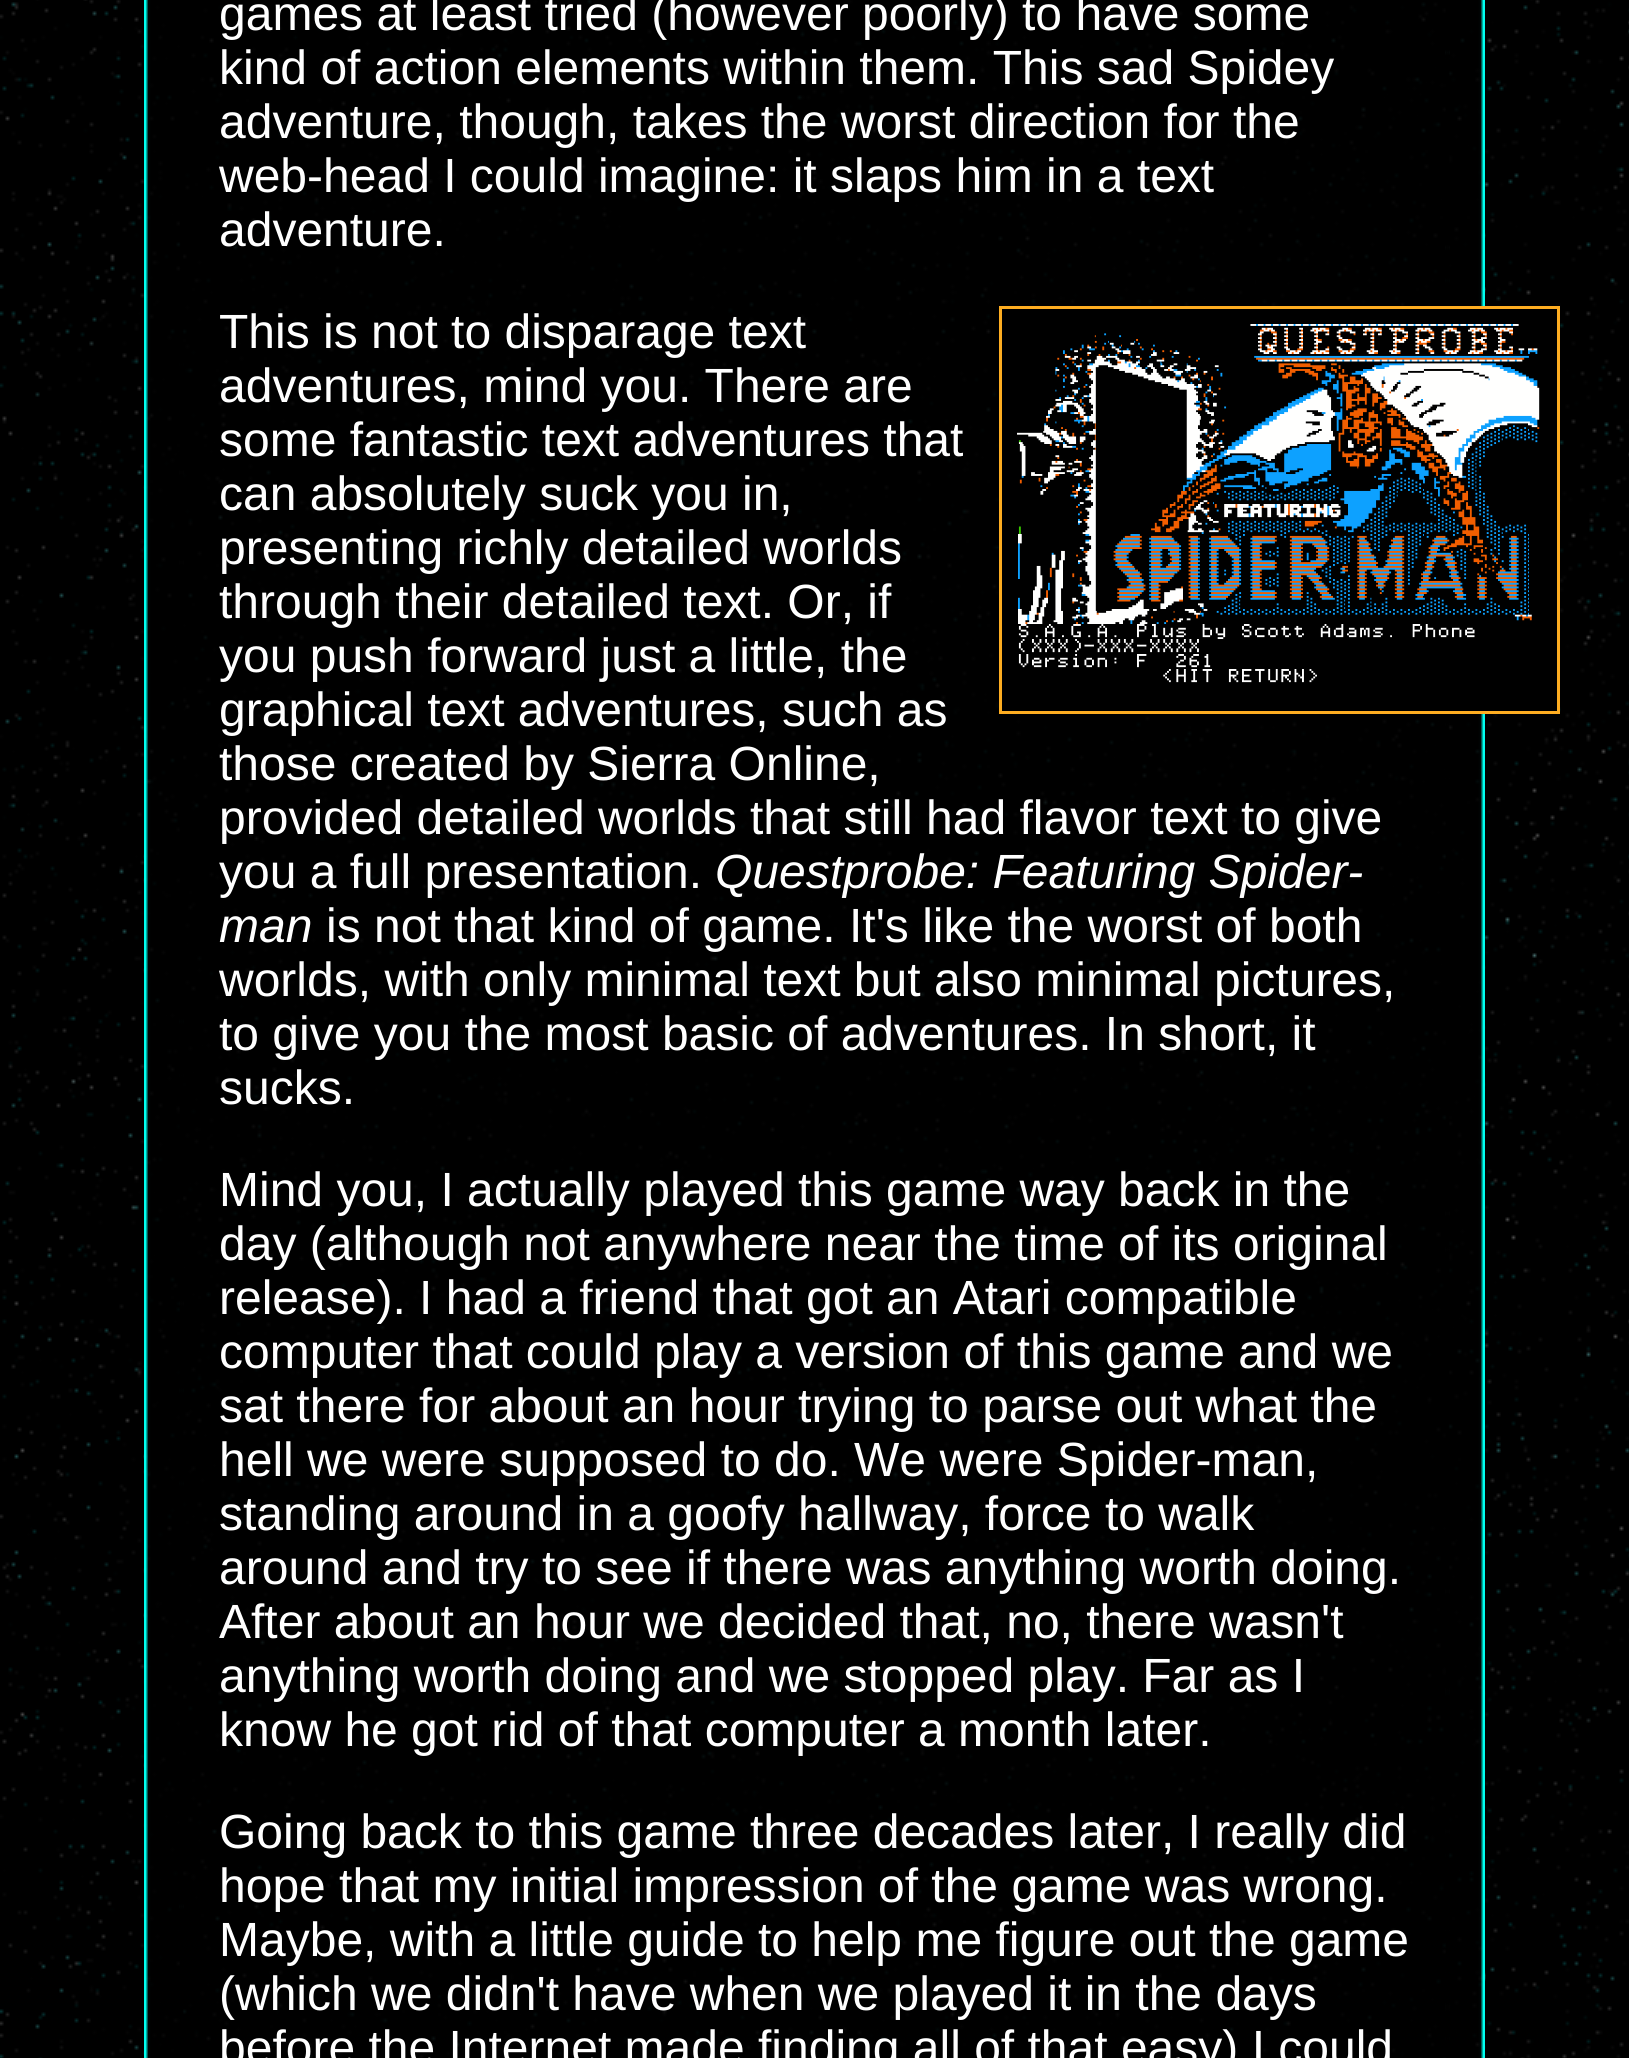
import math
import cairocffi as cairo

surface = cairo.ImageSurface(cairo.FORMAT_RGB24, 1629, 2058)
cr = cairo.Context(surface)
options = cairo.FontOptions()
options.set_hint_metrics(cairo.HINT_METRICS_OFF)
options.set_hint_style(cairo.HINT_STYLE_NONE)
cr.set_font_options(options)
cr.set_miter_limit(4)


def use_color(code):
    cr.set_source_rgb(*(v / 255 for v in bytes.fromhex(code[-6:])))


def picture(path, x, y, w, h):
    cr.save()
    cr.set_source_surface(cairo.ImageSurface.create_from_png(path), x, y)
    cr.rectangle(x, y, w, h)
    cr.fill()
    cr.restore()


use_color("#ffffff")
cr.paint()
picture("img1.png", 0, 0, 1629, 2058)
cr.set_source_rgba(0, 0, 0, 0.8)
cr.rectangle(180, 0, 1269, 2058)
cr.fill()
picture("img2.png", 144, 0, 1341, 2058)
cr.select_font_face("Liberation Sans")
cr.set_font_size(48)
use_color("#ffffff")
cr.move_to(219, 30)
cr.show_text("games at least tried (however poorly) to have some")
cr.move_to(219, 84)
cr.show_text("kind of action elements within them. This sad Spidey")
cr.move_to(219, 138)
cr.show_text("adventure, though, takes the worst direction for the")
cr.move_to(219, 192)
cr.show_text("web-head I could imagine: it slaps him in a text")
cr.move_to(219, 246)
cr.show_text("adventure.")
use_color("#000000")
cr.rectangle(1000.5, 307.5, 558, 405)
cr.fill_preserve()
use_color("#fead21")
cr.set_line_width(3)
cr.stroke()
picture("img3.png", 1017, 324, 523, 359)
use_color("#ffffff")
cr.move_to(219, 348)
cr.show_text("This is not to disparage text")
cr.move_to(219, 402)
cr.show_text("adventures, mind you. There are")
cr.move_to(219, 456)
cr.show_text("some fantastic text adventures that")
cr.move_to(219, 510)
cr.show_text("can absolutely suck you in,")
cr.move_to(219, 564)
cr.show_text("presenting richly detailed worlds")
cr.move_to(219, 618)
cr.show_text("through their detailed text. Or, if")
cr.move_to(219, 672)
cr.show_text("you push forward just a little, the")
cr.move_to(219, 726)
cr.show_text("graphical text adventures, such as")
cr.move_to(219, 780)
cr.show_text("those created by Sierra Online,")
cr.move_to(219, 834)
cr.show_text("provided detailed worlds that still had flavor text to give")
cr.move_to(219, 888)
cr.show_text("you a full presentation.")
cr.select_font_face("Liberation Sans", cairo.FONT_SLANT_ITALIC)
cr.move_to(715, 888)
cr.show_text("Questprobe: Featuring Spider-")
cr.move_to(219, 942)
cr.show_text("man")
cr.select_font_face("Liberation Sans")
cr.move_to(326, 942)
cr.show_text("is not that kind of game. It's like the worst of both")
cr.move_to(219, 996)
cr.show_text("worlds, with only minimal text but also minimal pictures,")
cr.move_to(219, 1050)
cr.show_text("to give you the most basic of adventures. In short, it")
cr.move_to(219, 1104)
cr.show_text("sucks.")
cr.move_to(219, 1206)
cr.show_text("Mind you, I actually played this game way back in the")
cr.move_to(219, 1260)
cr.show_text("day (although not anywhere near the time of its original")
cr.move_to(219, 1314)
cr.show_text("release). I had a friend that got an Atari compatible")
cr.move_to(219, 1368)
cr.show_text("computer that could play a version of this game and we")
cr.move_to(219, 1422)
cr.show_text("sat there for about an hour trying to parse out what the")
cr.move_to(219, 1476)
cr.show_text("hell we were supposed to do. We were Spider-man,")
cr.move_to(219, 1530)
cr.show_text("standing around in a goofy hallway, force to walk")
cr.move_to(219, 1584)
cr.show_text("around and try to see if there was anything worth doing.")
cr.move_to(219, 1638)
cr.show_text("After about an hour we decided that, no, there wasn't")
cr.move_to(219, 1692)
cr.show_text("anything worth doing and we stopped play. Far as I")
cr.move_to(219, 1746)
cr.show_text("know he got rid of that computer a month later.")
cr.move_to(219, 1848)
cr.show_text("Going back to this game three decades later, I really did")
cr.move_to(219, 1902)
cr.show_text("hope that my initial impression of the game was wrong.")
cr.move_to(219, 1956)
cr.show_text("Maybe, with a little guide to help me figure out the game")
cr.move_to(219, 2010)
cr.show_text("(which we didn't have when we played it in the days")
cr.move_to(219, 2064)
cr.show_text("before the Internet made finding all of that easy) I could")
surface.write_to_png("result.png")
